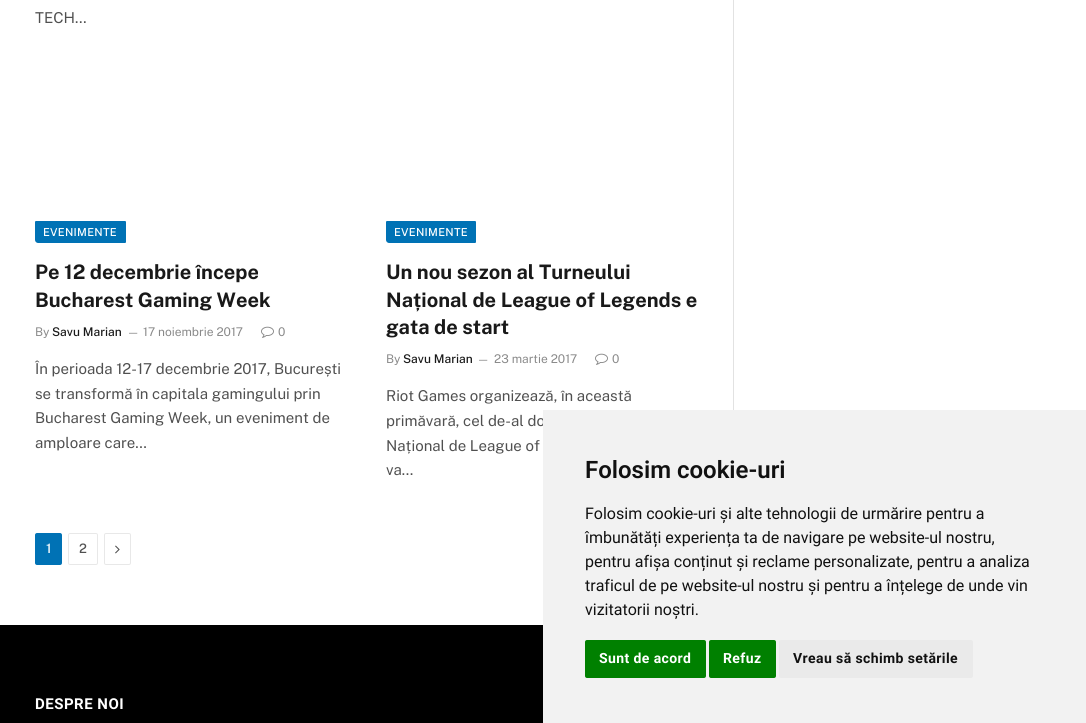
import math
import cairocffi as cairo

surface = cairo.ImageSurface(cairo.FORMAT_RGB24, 1086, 723)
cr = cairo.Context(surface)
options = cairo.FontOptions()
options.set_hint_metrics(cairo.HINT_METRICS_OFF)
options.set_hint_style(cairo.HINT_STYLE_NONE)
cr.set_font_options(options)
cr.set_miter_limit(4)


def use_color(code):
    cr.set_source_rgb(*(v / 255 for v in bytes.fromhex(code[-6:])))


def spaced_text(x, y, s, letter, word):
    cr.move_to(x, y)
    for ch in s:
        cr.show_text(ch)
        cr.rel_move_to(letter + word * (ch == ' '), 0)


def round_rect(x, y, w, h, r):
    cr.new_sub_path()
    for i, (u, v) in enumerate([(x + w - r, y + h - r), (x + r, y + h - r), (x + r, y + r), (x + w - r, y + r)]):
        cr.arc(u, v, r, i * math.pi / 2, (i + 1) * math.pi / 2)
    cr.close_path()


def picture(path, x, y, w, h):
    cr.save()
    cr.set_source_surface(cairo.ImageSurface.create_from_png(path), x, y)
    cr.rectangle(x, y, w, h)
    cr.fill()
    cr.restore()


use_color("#ffffff")
cr.paint()
cr.select_font_face("Public Sans")
cr.set_font_size(15)
use_color("#505050")
cr.move_to(35, 23)
cr.show_text("TECH…")
use_color("#0072b5")
cr.new_path()
cr.move_to(36, 221)
cr.line_to(125, 221)
cr.curve_to(125.5, 221, 126, 221.5, 126, 222)
cr.line_to(126, 242)
cr.curve_to(126, 242.5, 125.5, 243, 125, 243)
cr.line_to(38, 243)
cr.curve_to(36.5, 243, 35, 241.5, 35, 240)
cr.line_to(35, 222)
cr.curve_to(35, 221.5, 35.5, 221, 36, 221)
cr.close_path()
cr.fill()
cr.select_font_face("Public Sans Medium")
cr.set_font_size(11)
use_color("#ffffff")
spaced_text(43, 236, "EVENIMENTE", 0.25, 0)
cr.select_font_face("Public Sans", cairo.FONT_SLANT_NORMAL, cairo.FONT_WEIGHT_BOLD)
cr.set_font_size(20)
use_color("#191919")
cr.move_to(35, 279)
cr.show_text("Pe 12 decembrie începe")
cr.move_to(35, 307)
cr.show_text("Bucharest Gaming Week")
cr.select_font_face("Public Sans")
cr.set_font_size(12)
use_color("#8a8a8a")
cr.move_to(35, 336)
cr.show_text("By")
cr.select_font_face("Public Sans Medium")
use_color("#191919")
cr.move_to(52, 336)
cr.show_text("Savu Marian")
cr.select_font_face("Public Sans")
cr.set_font_size(11)
use_color("#8a8a8a")
cr.move_to(127, 336)
cr.show_text("—")
cr.set_font_size(12)
cr.move_to(143, 336)
cr.show_text("17 noiembrie 2017")
picture("img1.png", 261, 326, 13, 12)
cr.move_to(278, 336)
cr.show_text("0")
cr.set_font_size(15)
use_color("#505050")
cr.move_to(35, 374)
cr.show_text("În perioada 12-17 decembrie 2017, București")
cr.move_to(35, 399)
cr.show_text("se transformă în capitala gamingului prin")
cr.move_to(35, 423)
cr.show_text("Bucharest Gaming Week, un eveniment de")
cr.move_to(35, 448)
cr.show_text("amploare care…")
use_color("#0072b5")
cr.new_path()
cr.move_to(387, 221)
cr.line_to(475, 221)
cr.curve_to(475.5, 221, 476, 221.5, 476, 222)
cr.line_to(476, 242)
cr.curve_to(476, 242.5, 475.5, 243, 475, 243)
cr.line_to(389, 243)
cr.curve_to(387.5, 243, 386, 241.5, 386, 240)
cr.line_to(386, 222)
cr.curve_to(386, 221.5, 386.5, 221, 387, 221)
cr.close_path()
cr.fill()
cr.select_font_face("Public Sans Medium")
cr.set_font_size(11)
use_color("#ffffff")
spaced_text(394, 236, "EVENIMENTE", 0.25, 0)
cr.select_font_face("Public Sans", cairo.FONT_SLANT_NORMAL, cairo.FONT_WEIGHT_BOLD)
cr.set_font_size(20)
use_color("#191919")
cr.move_to(386, 279)
cr.show_text("Un nou sezon al Turneului")
cr.move_to(386, 307)
cr.show_text("Național de League of Legends e")
cr.move_to(386, 334)
cr.show_text("gata de start")
cr.select_font_face("Public Sans")
cr.set_font_size(12)
use_color("#8a8a8a")
cr.move_to(386, 363)
cr.show_text("By")
cr.select_font_face("Public Sans Medium")
use_color("#191919")
cr.move_to(403, 363)
cr.show_text("Savu Marian")
cr.select_font_face("Public Sans")
cr.set_font_size(11)
use_color("#8a8a8a")
cr.move_to(477, 363)
cr.show_text("—")
cr.set_font_size(12)
cr.move_to(494, 363)
cr.show_text("23 martie 2017")
picture("img1.png", 595, 353, 13, 12)
cr.move_to(612, 363)
cr.show_text("0")
cr.set_font_size(15)
use_color("#505050")
cr.move_to(386, 401)
cr.show_text("Riot Games organizează, în această")
cr.move_to(386, 426)
cr.show_text("primăvară, cel de-al do")
cr.move_to(386, 451)
cr.show_text("Național de League of")
cr.move_to(386, 475)
cr.show_text("va…")
use_color("#0072b5")
round_rect(35, 533, 27, 32, 2)
cr.fill()
cr.select_font_face("Public Sans Medium")
cr.set_font_size(13)
use_color("#ffffff")
cr.move_to(46, 553)
cr.show_text("1")
round_rect(68.5, 533.5, 29, 31, 1.5)
use_color("#e8e8e8")
cr.set_line_width(1)
cr.stroke()
use_color("#505050")
cr.move_to(79, 553)
cr.show_text("2")
round_rect(104.5, 533.5, 26, 31, 1.5)
use_color("#e8e8e8")
cr.stroke()
picture("img2.png", 115, 545, 5, 9)
use_color("#e2e2e2")
cr.rectangle(733, 0, 1, 410)
cr.fill()
use_color("#000000")
cr.rectangle(0, 625, 543, 98)
cr.fill()
cr.select_font_face("Roboto", cairo.FONT_SLANT_NORMAL, cairo.FONT_WEIGHT_BOLD)
cr.set_font_size(15)
use_color("#ffffff")
spaced_text(35, 709, "DESPRE NOI", 0.5, 0)
use_color("#f2f2f2")
cr.rectangle(543, 410, 543, 313)
cr.fill()
cr.select_font_face("Roboto SemiBold")
cr.set_font_size(24)
use_color("#111111")
cr.move_to(585, 478)
cr.show_text("Folosim cookie-uri")
cr.select_font_face("Roboto")
cr.set_font_size(16)
cr.move_to(585, 519)
cr.show_text("Folosim cookie-uri și alte tehnologii de urmărire pentru a")
cr.move_to(585, 543)
cr.show_text("îmbunătăți experiența ta de navigare pe website-ul nostru,")
cr.move_to(585, 567)
cr.show_text("pentru afișa conținut și reclame personalizate, pentru a analiza")
cr.move_to(585, 591)
cr.show_text("traficul de pe website-ul nostru și pentru a înțelege de unde vin")
cr.move_to(585, 615)
cr.show_text("vizitatorii noștri.")
use_color("#008000")
round_rect(585, 640, 121, 38, 2)
cr.fill()
cr.select_font_face("Roboto", cairo.FONT_SLANT_NORMAL, cairo.FONT_WEIGHT_BOLD)
cr.set_font_size(14)
use_color("#ffffff")
spaced_text(599, 663, "Sunt de acord", 0.4, 0)
use_color("#008000")
round_rect(709, 640, 67, 38, 2)
cr.fill()
use_color("#ffffff")
spaced_text(723, 663, "Refuz", 0.4, 0)
use_color("#eaeaea")
round_rect(779, 640, 194, 38, 2)
cr.fill()
use_color("#111111")
spaced_text(793, 663, "Vreau să schimb setările", 0.4, 0)
surface.write_to_png("result.png")
